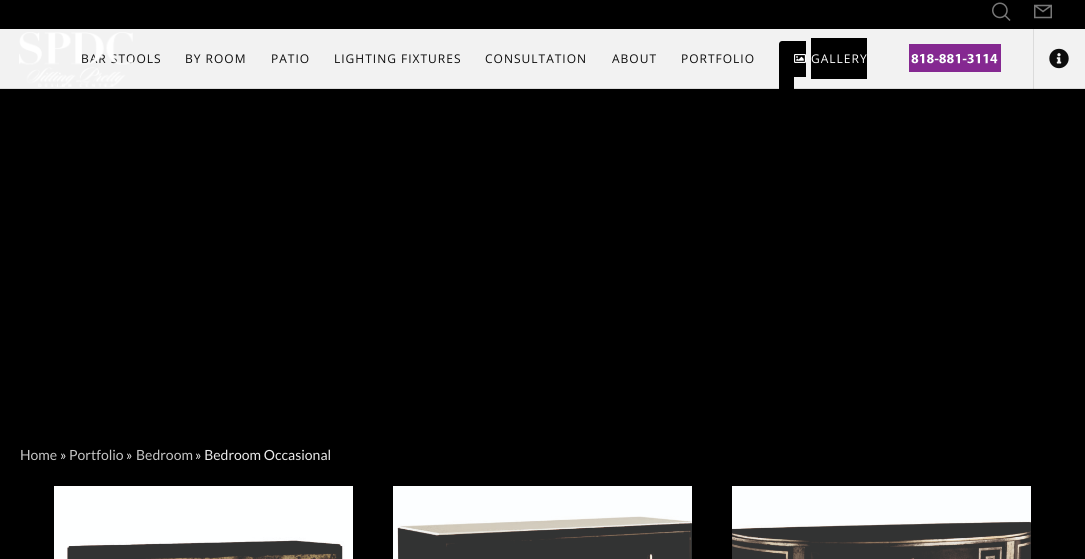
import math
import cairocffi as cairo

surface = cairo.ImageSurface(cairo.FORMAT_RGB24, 1085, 559)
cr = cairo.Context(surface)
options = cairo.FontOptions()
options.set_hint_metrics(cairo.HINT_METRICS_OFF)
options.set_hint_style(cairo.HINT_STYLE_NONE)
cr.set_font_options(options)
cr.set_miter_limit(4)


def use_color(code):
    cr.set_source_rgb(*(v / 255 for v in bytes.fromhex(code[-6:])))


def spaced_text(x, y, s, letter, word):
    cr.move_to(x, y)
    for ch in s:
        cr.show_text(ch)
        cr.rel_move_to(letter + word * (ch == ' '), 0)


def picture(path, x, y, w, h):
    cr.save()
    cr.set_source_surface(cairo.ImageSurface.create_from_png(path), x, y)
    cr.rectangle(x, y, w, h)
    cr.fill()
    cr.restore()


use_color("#000000")
cr.paint()
picture("img1.png", 992, 2, 19, 19)
picture("img2.png", 1034, 4, 18, 15)
use_color("#f2f2f2")
cr.rectangle(0, 29, 1085, 59)
cr.fill()
use_color("#dbdbdb")
cr.rectangle(1033, 29, 1, 60)
cr.fill()
cr.rectangle(0, 88, 1085, 1)
cr.fill()
use_color("#c6c6c6")
cr.rectangle(1033, 88, 1, 1)
cr.fill()
cr.select_font_face("Open Sans")
cr.set_font_size(12)
use_color("#0d0d0d")
spaced_text(81, 63, "BAR STOOLS", 1, 0)
picture("img3.png", 19, 32, 114, 55)
spaced_text(185, 63, "BY ROOM", 1, 0)
spaced_text(271, 63, "PATIO", 1, 0)
spaced_text(334, 63, "LIGHTING FIXTURES", 1, 0)
spaced_text(485, 63, "CONSULTATION", 1, 0)
spaced_text(612, 63, "ABOUT", 1, 0)
spaced_text(681, 63, "PORTFOLIO", 1, 0)
use_color("#000000")
cr.new_path()
cr.move_to(782, 41)
cr.line_to(806, 41)
cr.line_to(806, 77)
cr.line_to(782, 77)
cr.curve_to(780.5, 77, 779, 75.5, 779, 74)
cr.line_to(779, 44)
cr.curve_to(779, 42.5, 780.5, 41, 782, 41)
cr.close_path()
cr.fill()
cr.rectangle(811, 38, 56, 41)
cr.fill()
cr.new_path()
cr.move_to(779, 69)
cr.line_to(791, 69)
cr.curve_to(792.5, 69, 794, 70.5, 794, 72)
cr.line_to(794, 92)
cr.curve_to(794, 93.5, 792.5, 95, 791, 95)
cr.line_to(779, 95)
cr.close_path()
cr.fill()
picture("img4.png", 794, 54, 12, 9)
use_color("#ffffff")
spaced_text(811, 63, "GALLERY", 1, 0)
picture("img5.png", 909, 44, 92, 28)
picture("img6.png", 1049, 48, 20, 21)
cr.select_font_face("Lato")
cr.set_font_size(14)
use_color("#c6c6c6")
cr.move_to(20, 460)
cr.show_text("Home")
use_color("#eaeaea")
cr.move_to(60, 460)
cr.show_text("»")
use_color("#c6c6c6")
cr.move_to(69, 460)
cr.show_text("Portfolio")
use_color("#eaeaea")
cr.move_to(126, 460)
cr.show_text("»")
use_color("#c6c6c6")
cr.move_to(136, 460)
cr.show_text("Bedroom")
use_color("#eaeaea")
cr.move_to(195, 460)
cr.show_text("» Bedroom Occasional")
picture("img7.png", 54, 486, 299, 73)
picture("img8.png", 393, 486, 299, 73)
picture("img9.png", 732, 486, 299, 73)
surface.write_to_png("result.png")
